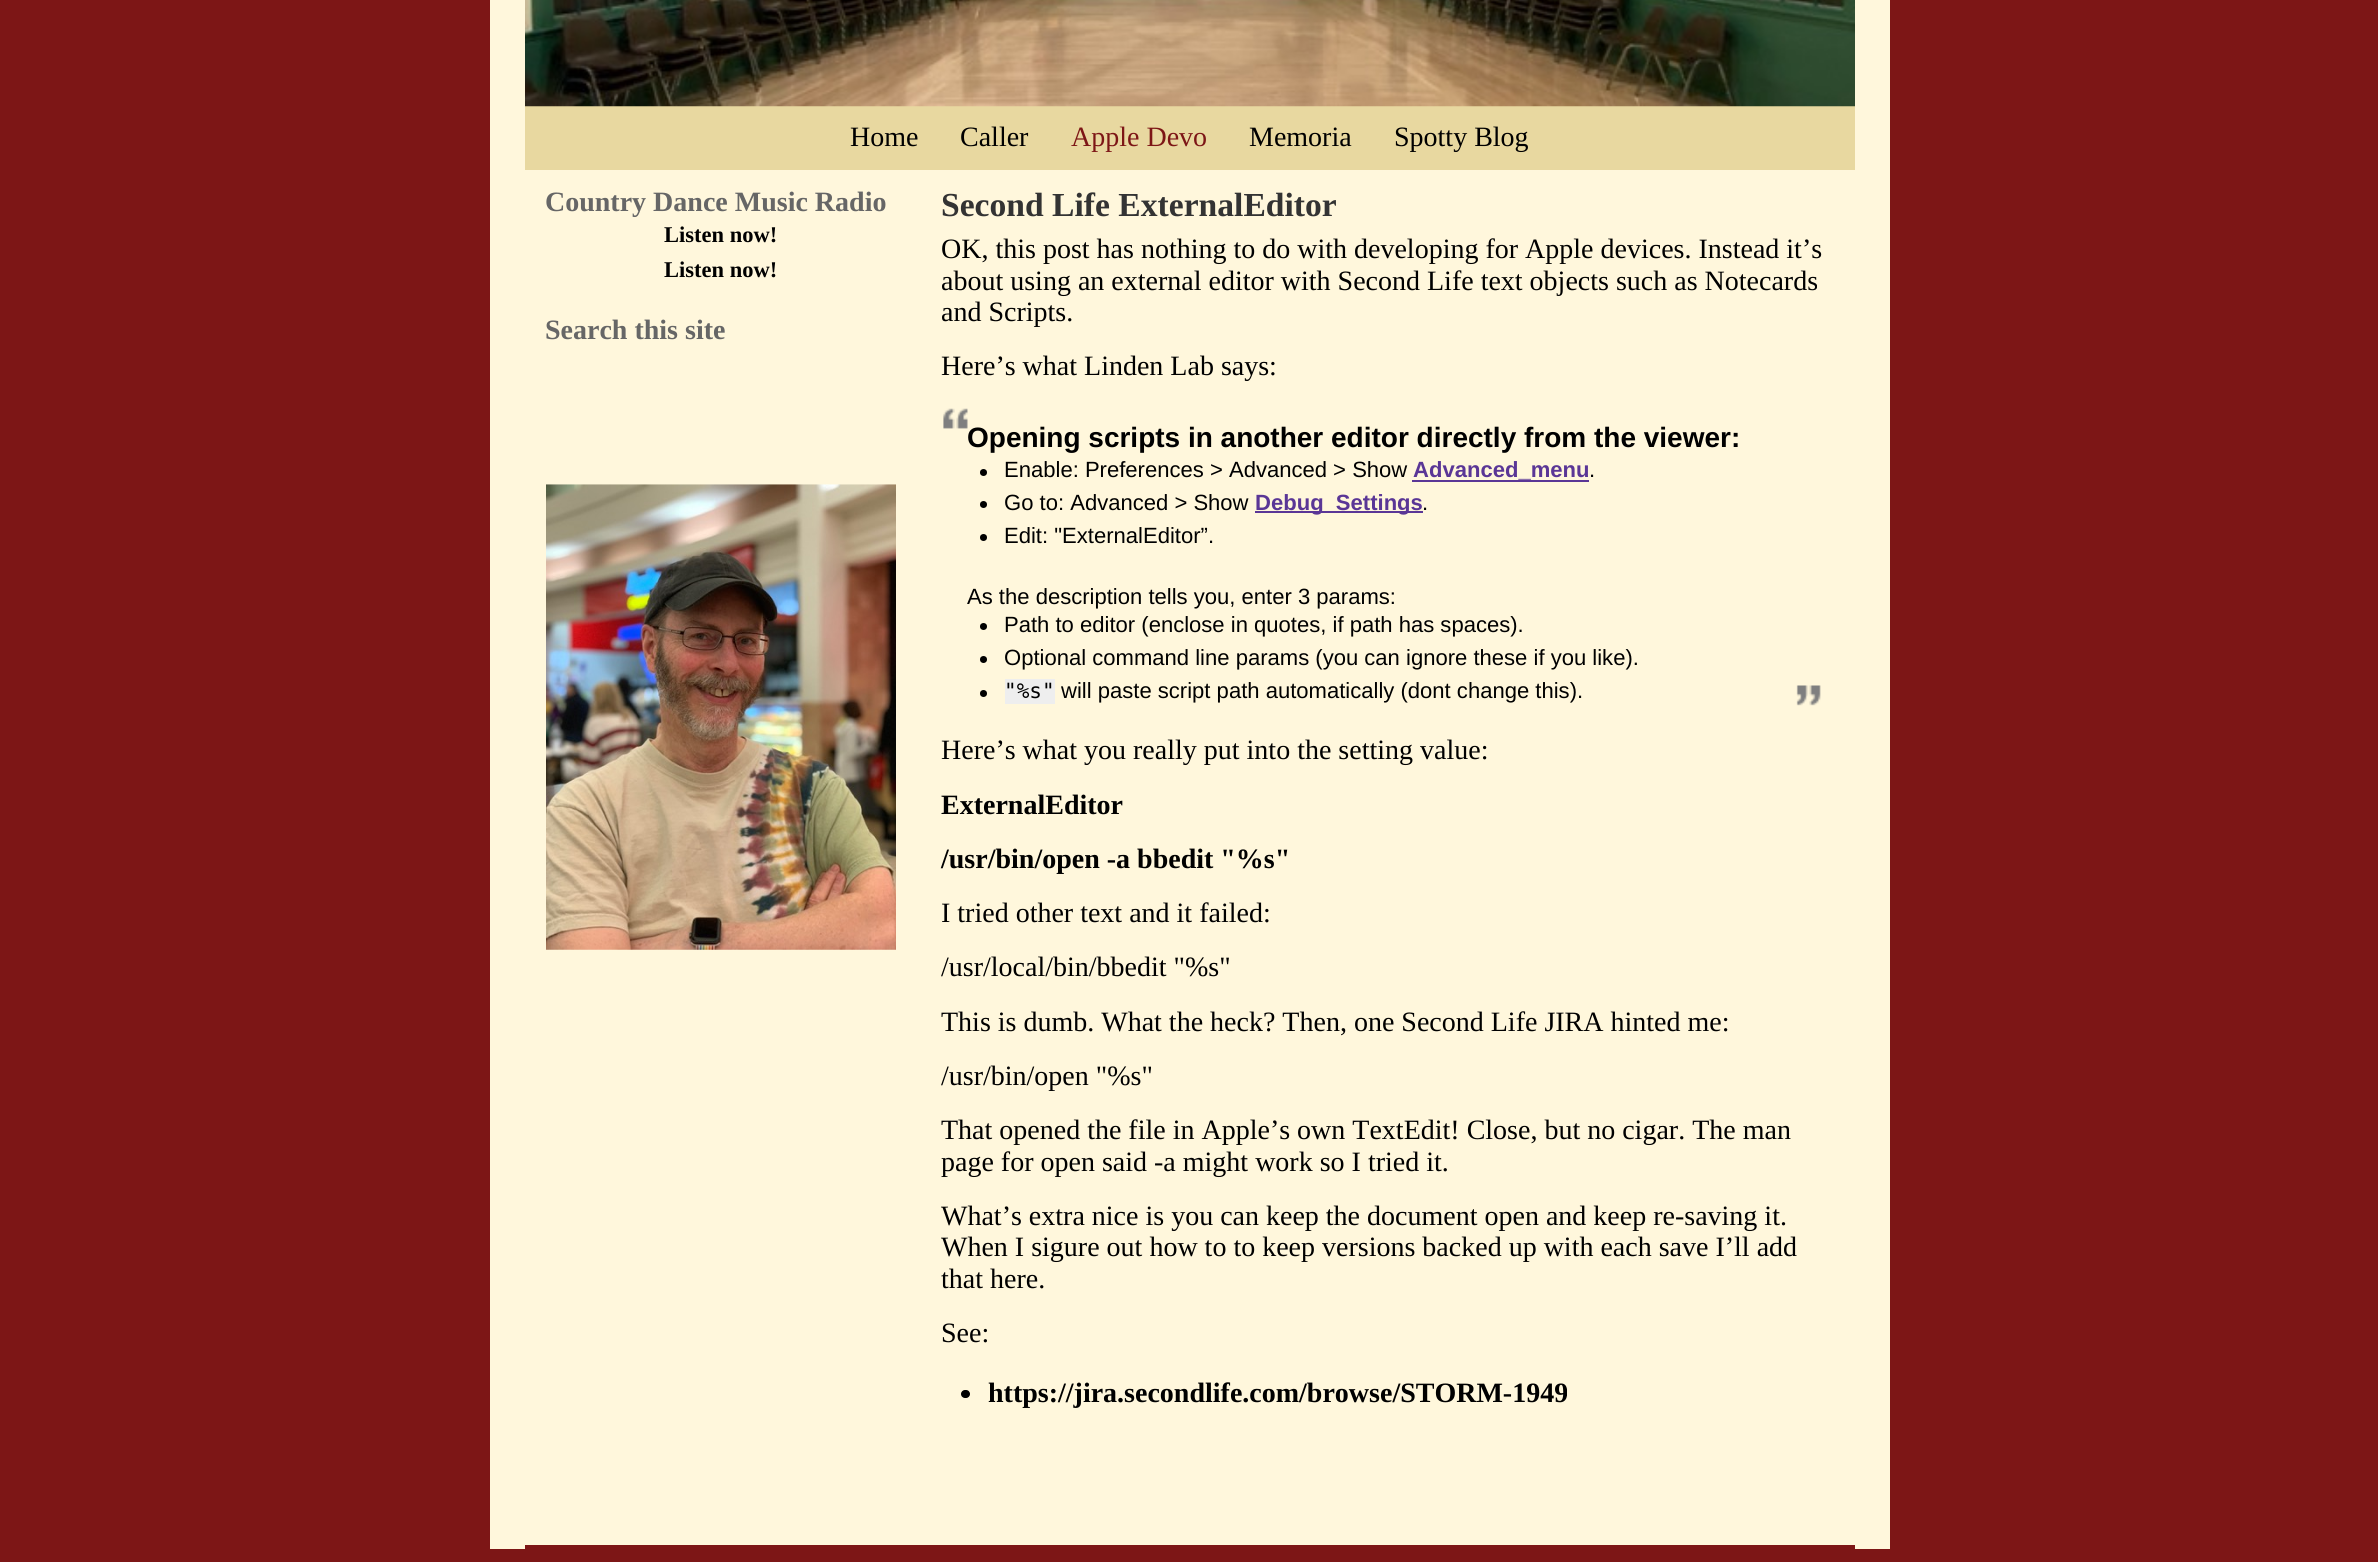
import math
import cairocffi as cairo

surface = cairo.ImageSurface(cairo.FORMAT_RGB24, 2378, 1562)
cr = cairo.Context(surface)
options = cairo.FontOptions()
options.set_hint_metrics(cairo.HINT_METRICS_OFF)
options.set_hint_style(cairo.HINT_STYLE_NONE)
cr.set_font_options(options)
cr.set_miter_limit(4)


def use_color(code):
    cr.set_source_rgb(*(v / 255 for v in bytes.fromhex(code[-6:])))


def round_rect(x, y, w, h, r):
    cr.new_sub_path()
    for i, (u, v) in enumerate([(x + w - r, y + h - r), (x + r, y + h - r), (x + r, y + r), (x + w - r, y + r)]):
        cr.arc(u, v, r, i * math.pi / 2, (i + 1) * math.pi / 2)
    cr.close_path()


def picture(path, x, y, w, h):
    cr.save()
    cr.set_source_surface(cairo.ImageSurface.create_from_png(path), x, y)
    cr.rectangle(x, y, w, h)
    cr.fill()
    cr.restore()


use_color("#7d1616")
cr.paint()
use_color("#fff7dc")
cr.rectangle(490, 0, 1400, 1549)
cr.fill()
use_color("#e8d8a0")
cr.rectangle(525, 106, 1330, 64)
cr.fill()
picture("img1.png", 525, 0, 1330, 107)
cr.select_font_face("Liberation Serif")
cr.set_font_size(28)
use_color("#000000")
cr.move_to(850, 146)
cr.show_text("Home")
cr.move_to(960, 146)
cr.show_text("Caller")
use_color("#7d1616")
cr.move_to(1071, 146)
cr.show_text("Apple Devo")
use_color("#000000")
cr.move_to(1249, 146)
cr.show_text("Memoria")
cr.move_to(1394, 146)
cr.show_text("Spotty Blog")
cr.select_font_face("Liberation Serif", cairo.FONT_SLANT_NORMAL, cairo.FONT_WEIGHT_BOLD)
use_color("#666666")
cr.move_to(545, 211)
cr.show_text("Country Dance Music Radio")
cr.set_font_size(22.5)
use_color("#000000")
cr.move_to(664, 242)
cr.show_text("Listen now!")
cr.move_to(664, 277)
cr.show_text("Listen now!")
cr.set_font_size(28)
use_color("#666666")
cr.move_to(545, 339)
cr.show_text("Search this site")
picture("img2.png", 546, 484, 350, 466)
cr.set_font_size(33.6)
use_color("#333333")
cr.move_to(941, 216)
cr.show_text("Second Life ExternalEditor")
cr.select_font_face("Liberation Serif")
cr.set_font_size(28)
use_color("#000000")
cr.move_to(941, 258)
cr.show_text("OK, this post has nothing to do with developing for Apple devices. Instead it’s")
cr.move_to(941, 290)
cr.show_text("about using an external editor with Second Life text objects such as Notecards")
cr.move_to(941, 321)
cr.show_text("and Scripts.")
cr.move_to(941, 375)
cr.show_text("Here’s what Linden Lab says:")
picture("img3.png", 943, 408, 25, 21)
cr.select_font_face("Liberation Sans", cairo.FONT_SLANT_NORMAL, cairo.FONT_WEIGHT_BOLD)
cr.move_to(967, 447)
cr.show_text("Opening scripts in another editor directly from the viewer:")
cr.new_path()
cr.arc(983.5, 472.5, 3.5, 0, 2 * math.pi)
cr.fill()
cr.select_font_face("Liberation Sans")
cr.set_font_size(22.05)
cr.move_to(1004, 477)
cr.show_text("Enable: Preferences > Advanced > Show")
cr.select_font_face("Liberation Sans", cairo.FONT_SLANT_NORMAL, cairo.FONT_WEIGHT_BOLD)
use_color("#5a3696")
cr.move_to(1413, 477)
cr.show_text("Advanced_menu")
cr.rectangle(1412, 480, 177, 2)
cr.fill()
cr.select_font_face("Liberation Sans")
use_color("#000000")
cr.move_to(1589, 477)
cr.show_text(".")
cr.new_path()
cr.arc(983.5, 504.5, 3.5, 0, 2 * math.pi)
cr.fill()
cr.move_to(1004, 510)
cr.show_text("Go to: Advanced > Show")
use_color("#5a3696")
cr.rectangle(1255, 511, 168, 2)
cr.fill()
cr.select_font_face("Liberation Sans", cairo.FONT_SLANT_NORMAL, cairo.FONT_WEIGHT_BOLD)
cr.move_to(1255, 510)
cr.show_text("Debug_Settings")
cr.select_font_face("Liberation Sans")
use_color("#000000")
cr.move_to(1422, 510)
cr.show_text(".")
cr.new_path()
cr.arc(983.5, 537.5, 3.5, 0, 2 * math.pi)
cr.fill()
cr.move_to(1004, 543)
cr.show_text("Edit: \"ExternalEditor”.")
cr.move_to(967, 604)
cr.show_text("As the description tells you, enter 3 params:")
cr.new_path()
cr.arc(983.5, 626.5, 3.5, 0, 2 * math.pi)
cr.fill()
cr.move_to(1004, 632)
cr.show_text("Path to editor (enclose in quotes, if path has spaces).")
cr.new_path()
cr.arc(983.5, 659.5, 3.5, 0, 2 * math.pi)
cr.fill()
cr.move_to(1004, 665)
cr.show_text("Optional command line params (you can ignore these if you like).")
cr.new_path()
cr.arc(983.5, 693.5, 3.5, 0, 2 * math.pi)
cr.fill()
use_color("#eeeeee")
cr.rectangle(1005, 679, 50, 25)
cr.fill()
cr.select_font_face("DejaVu Sans Mono")
cr.set_font_size(21)
use_color("#000000")
cr.move_to(1004, 698)
cr.show_text("\"%s\"")
cr.select_font_face("Liberation Sans")
cr.set_font_size(22.05)
cr.move_to(1061, 698)
cr.show_text("will paste script path automatically (dont change this).")
picture("img4.png", 1796, 685, 25, 21)
cr.select_font_face("Liberation Serif")
cr.set_font_size(28)
cr.move_to(941, 759)
cr.show_text("Here’s what you really put into the setting value:")
cr.select_font_face("Liberation Serif", cairo.FONT_SLANT_NORMAL, cairo.FONT_WEIGHT_BOLD)
cr.move_to(941, 814)
cr.show_text("ExternalEditor")
cr.move_to(941, 868)
cr.show_text("/usr/bin/open -a bbedit \"%s\"")
cr.select_font_face("Liberation Serif")
cr.move_to(941, 922)
cr.show_text("I tried other text and it failed:")
cr.move_to(941, 976)
cr.show_text("/usr/local/bin/bbedit \"%s\"")
cr.move_to(941, 1031)
cr.show_text("This is dumb. What the heck? Then, one Second Life JIRA hinted me:")
cr.move_to(941, 1085)
cr.show_text("/usr/bin/open \"%s\"")
cr.move_to(941, 1139)
cr.show_text("That opened the file in Apple’s own TextEdit! Close, but no cigar. The man")
cr.move_to(941, 1171)
cr.show_text("page for open said -a might work so I tried it.")
cr.move_to(941, 1225)
cr.show_text("What’s extra nice is you can keep the document open and keep re-saving it.")
cr.move_to(941, 1256)
cr.show_text("When I sigure out how to to keep versions backed up with each save I’ll add")
cr.move_to(941, 1288)
cr.show_text("that here.")
cr.move_to(941, 1342)
cr.show_text("See:")
round_rect(961, 1390, 9, 8, 4)
cr.fill()
cr.select_font_face("Liberation Serif", cairo.FONT_SLANT_NORMAL, cairo.FONT_WEIGHT_BOLD)
cr.move_to(988, 1402)
cr.show_text("https://jira.secondlife.com/browse/STORM-1949")
use_color("#7d1616")
cr.rectangle(525, 1545, 1330, 4)
cr.fill()
surface.write_to_png("result.png")
